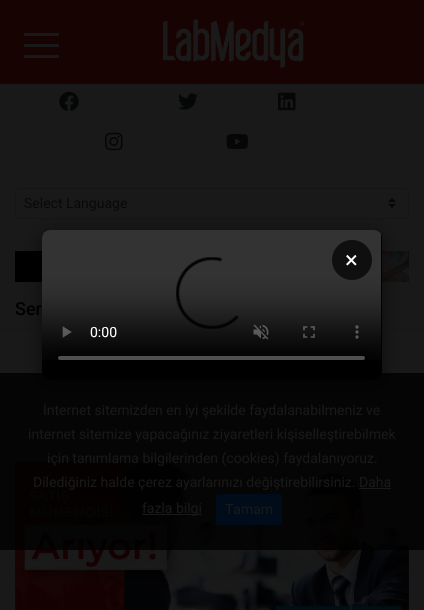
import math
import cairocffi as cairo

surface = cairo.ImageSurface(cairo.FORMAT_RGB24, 424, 610)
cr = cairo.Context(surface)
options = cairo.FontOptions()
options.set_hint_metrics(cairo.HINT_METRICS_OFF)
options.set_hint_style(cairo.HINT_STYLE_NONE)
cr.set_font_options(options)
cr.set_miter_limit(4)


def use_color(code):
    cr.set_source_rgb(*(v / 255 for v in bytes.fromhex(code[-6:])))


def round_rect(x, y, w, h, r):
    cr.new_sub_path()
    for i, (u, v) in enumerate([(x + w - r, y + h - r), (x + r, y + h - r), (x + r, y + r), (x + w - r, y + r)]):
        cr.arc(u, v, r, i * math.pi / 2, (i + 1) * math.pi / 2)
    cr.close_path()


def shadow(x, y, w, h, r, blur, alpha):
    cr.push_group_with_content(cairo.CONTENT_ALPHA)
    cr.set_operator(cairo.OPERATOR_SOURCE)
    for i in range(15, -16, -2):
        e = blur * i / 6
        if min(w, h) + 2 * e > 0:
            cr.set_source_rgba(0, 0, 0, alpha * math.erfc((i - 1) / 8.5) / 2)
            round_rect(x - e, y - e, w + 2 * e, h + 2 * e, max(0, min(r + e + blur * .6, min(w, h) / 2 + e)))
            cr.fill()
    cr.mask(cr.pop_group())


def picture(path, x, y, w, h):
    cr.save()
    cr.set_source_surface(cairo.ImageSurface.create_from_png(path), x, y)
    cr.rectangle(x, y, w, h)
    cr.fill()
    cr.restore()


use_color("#191919")
cr.paint()
use_color("#170402")
cr.rectangle(0, 0, 424, 84)
cr.fill()
picture("img1.png", 163, 19, 142, 49)
use_color("#191919")
cr.rectangle(24, 33, 35, 3)
cr.fill()
cr.rectangle(24, 44, 35, 3)
cr.fill()
cr.rectangle(24, 55, 35, 3)
cr.fill()
picture("img2.png", 59, 91, 20, 20)
picture("img3.png", 178, 93, 20, 17)
picture("img4.png", 278, 92, 18, 19)
picture("img5.png", 105, 132, 18, 19)
picture("img6.png", 226, 134, 22, 15)
picture("img7.png", 388, 198, 8, 10)
round_rect(15.5, 188.5, 393, 30, 3.5)
use_color("#151516")
cr.set_line_width(1)
cr.stroke()
cr.select_font_face("Roboto")
cr.set_font_size(14)
use_color("#070809")
cr.move_to(24, 208)
cr.show_text("Select Language")
picture("img8.png", 15, 251, 394, 31)
use_color("#161717")
cr.rectangle(0, 328, 424, 1)
cr.fill()
cr.rectangle(15, 353, 394, 1)
cr.fill()
cr.rectangle(15, 436, 394, 1)
cr.fill()
picture("img10.png", 15, 461, 394, 149)
cr.set_source_rgba(0, 0, 0, 0.8)
cr.rectangle(0, 373, 424, 177)
cr.fill()
use_color("#000000")
shadow(42, 234, 340, 150, 8, 10, 0.5)
use_color("#000000")
round_rect(42, 230, 340, 150, 8)
cr.fill()
picture("img9.png", 42, 230, 339, 130)
use_color("#0f0f0f")
cr.arc(352, 260, 20, 0, 2 * math.pi)
cr.fill()
cr.set_font_size(24)
use_color("#ffffff")
cr.move_to(345, 268)
cr.show_text("×")
cr.select_font_face("Roboto Medium")
cr.set_font_size(18)
use_color("#000000")
cr.move_to(15, 315)
cr.show_text("Ser")
cr.select_font_face("Roboto")
cr.set_font_size(14)
use_color("#191919")
cr.move_to(43, 415)
cr.show_text("İnternet sitemizden en iyi şekilde faydalanabilmeniz ve")
cr.move_to(28, 439)
cr.show_text("internet sitemize yapacağınız ziyaretleri kişiselleştirebilmek")
cr.move_to(47, 463)
cr.show_text("için tanımlama bilgilerinden (cookies) faydalanıyoruz.")
cr.move_to(33, 487)
cr.show_text("Dilediğiniz halde çerez ayarlarınızı değiştirebilirsiniz. Daha")
cr.rectangle(142, 514, 60, 1)
cr.fill()
cr.move_to(142, 513)
cr.show_text("fazla bilgi")
cr.rectangle(359, 488, 32, 1)
cr.fill()
use_color("#000c19")
round_rect(216.5, 494.5, 65, 30, 2.5)
cr.fill_preserve()
cr.stroke()
use_color("#191919")
cr.move_to(225, 514)
cr.show_text("Tamam")
surface.write_to_png("result.png")
